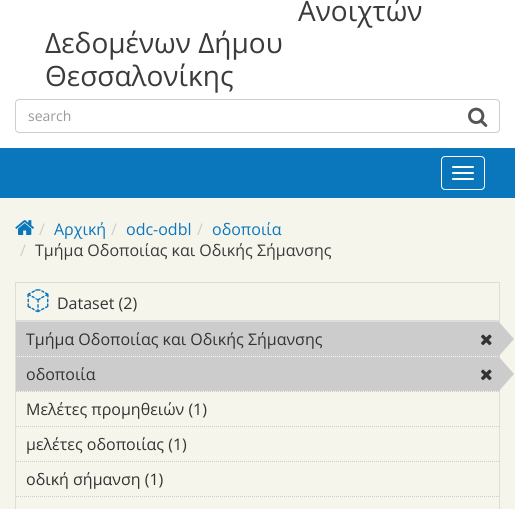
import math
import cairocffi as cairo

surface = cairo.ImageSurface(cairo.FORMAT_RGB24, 515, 509)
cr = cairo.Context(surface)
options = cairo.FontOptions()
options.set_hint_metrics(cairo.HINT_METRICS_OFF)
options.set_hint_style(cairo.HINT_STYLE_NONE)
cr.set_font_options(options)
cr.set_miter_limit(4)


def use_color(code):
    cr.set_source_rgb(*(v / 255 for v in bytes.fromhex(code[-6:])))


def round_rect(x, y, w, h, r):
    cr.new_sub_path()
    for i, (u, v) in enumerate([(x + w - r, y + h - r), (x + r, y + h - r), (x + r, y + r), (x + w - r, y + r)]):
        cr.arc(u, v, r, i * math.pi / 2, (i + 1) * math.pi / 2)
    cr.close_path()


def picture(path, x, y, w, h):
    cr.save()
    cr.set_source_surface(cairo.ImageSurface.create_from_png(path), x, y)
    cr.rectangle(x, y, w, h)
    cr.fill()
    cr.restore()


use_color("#ffffff")
cr.paint()
cr.select_font_face("Open Sans")
cr.set_font_size(28)
use_color("#3b3b3b")
cr.move_to(298, 21)
cr.show_text("Ανοιχτών")
cr.move_to(45, 53)
cr.show_text("Δεδομένων Δήμου")
cr.move_to(45, 86)
cr.show_text("Θεσσαλονίκης")
round_rect(15.5, 99.5, 484, 33, 3.5)
use_color("#cdcdcd")
cr.set_line_width(1)
cr.stroke()
cr.set_font_size(14)
use_color("#999999")
cr.move_to(28, 121)
cr.show_text("search")
picture("img1.png", 468, 107, 20, 20)
use_color("#0a77bd")
cr.rectangle(0, 148, 515, 50)
cr.fill()
round_rect(441.5, 156.5, 43, 33, 3.5)
use_color("#ffffff")
cr.stroke()
round_rect(452, 166, 22, 2, 1)
cr.fill()
round_rect(452, 172, 22, 2, 1)
cr.fill()
round_rect(452, 178, 22, 2, 1)
cr.fill()
use_color("#f5f5ec")
cr.rectangle(0, 198, 515, 311)
cr.fill()
picture("img2.png", 15, 220, 19, 15)
cr.set_font_size(16)
use_color("#cccccc")
cr.move_to(39, 235)
cr.show_text("/")
use_color("#0a77bd")
cr.move_to(54, 235)
cr.show_text("Αρχική")
use_color("#cccccc")
cr.move_to(111, 235)
cr.show_text("/")
use_color("#0a77bd")
cr.move_to(126, 235)
cr.show_text("odc-odbl")
use_color("#cccccc")
cr.move_to(197, 235)
cr.show_text("/")
use_color("#0a77bd")
cr.move_to(212, 235)
cr.show_text("οδοποιία")
use_color("#cccccc")
cr.move_to(20, 256)
cr.show_text("/")
use_color("#3b3b3b")
cr.move_to(35, 256)
cr.show_text("Τμήμα Οδοποιίας και Οδικής Σήμανσης")
cr.rectangle(15.5, 282.5, 484, 38)
use_color("#dddddd")
cr.stroke()
picture("img3.png", 27, 289, 22, 24)
use_color("#333333")
cr.move_to(57, 309)
cr.show_text("Dataset (2)")
cr.rectangle(15.5, 321.5, 484, 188)
use_color("#dddddd")
cr.stroke()
cr.new_path()
cr.move_to(16, 356.5)
cr.line_to(499, 356.5)
use_color("#cccccc")
cr.set_dash([1, 1])
cr.stroke()
cr.rectangle(16, 322, 483, 34)
cr.fill()
use_color("#333333")
cr.move_to(26, 345)
cr.show_text("Τμήμα Οδοποιίας και Οδικής Σήμανσης")
picture("img4.png", 481, 334, 11, 12)
use_color("#cccccc")
cr.new_path()
cr.move_to(499, 356)
cr.line_to(499, 322)
cr.line_to(514, 339)
cr.close_path()
cr.fill()
cr.new_path()
cr.move_to(16, 391.5)
cr.line_to(499, 391.5)
cr.stroke()
cr.rectangle(16, 357, 483, 34)
cr.fill()
use_color("#333333")
cr.move_to(26, 380)
cr.show_text("οδοποιία")
picture("img4.png", 481, 369, 11, 12)
use_color("#cccccc")
cr.new_path()
cr.move_to(499, 391)
cr.line_to(499, 357)
cr.line_to(514, 374)
cr.close_path()
cr.fill()
cr.new_path()
cr.move_to(16, 426.5)
cr.line_to(499, 426.5)
cr.stroke()
use_color("#333333")
cr.move_to(26, 415)
cr.show_text("Μελέτες προμηθειών (1)")
cr.new_path()
cr.move_to(16, 461.5)
cr.line_to(499, 461.5)
use_color("#cccccc")
cr.stroke()
use_color("#333333")
cr.move_to(26, 450)
cr.show_text("μελέτες οδοποιίας (1)")
cr.new_path()
cr.move_to(16, 496.5)
cr.line_to(499, 496.5)
use_color("#cccccc")
cr.stroke()
use_color("#333333")
cr.move_to(26, 485)
cr.show_text("οδική σήμανση (1)")
surface.write_to_png("result.png")
